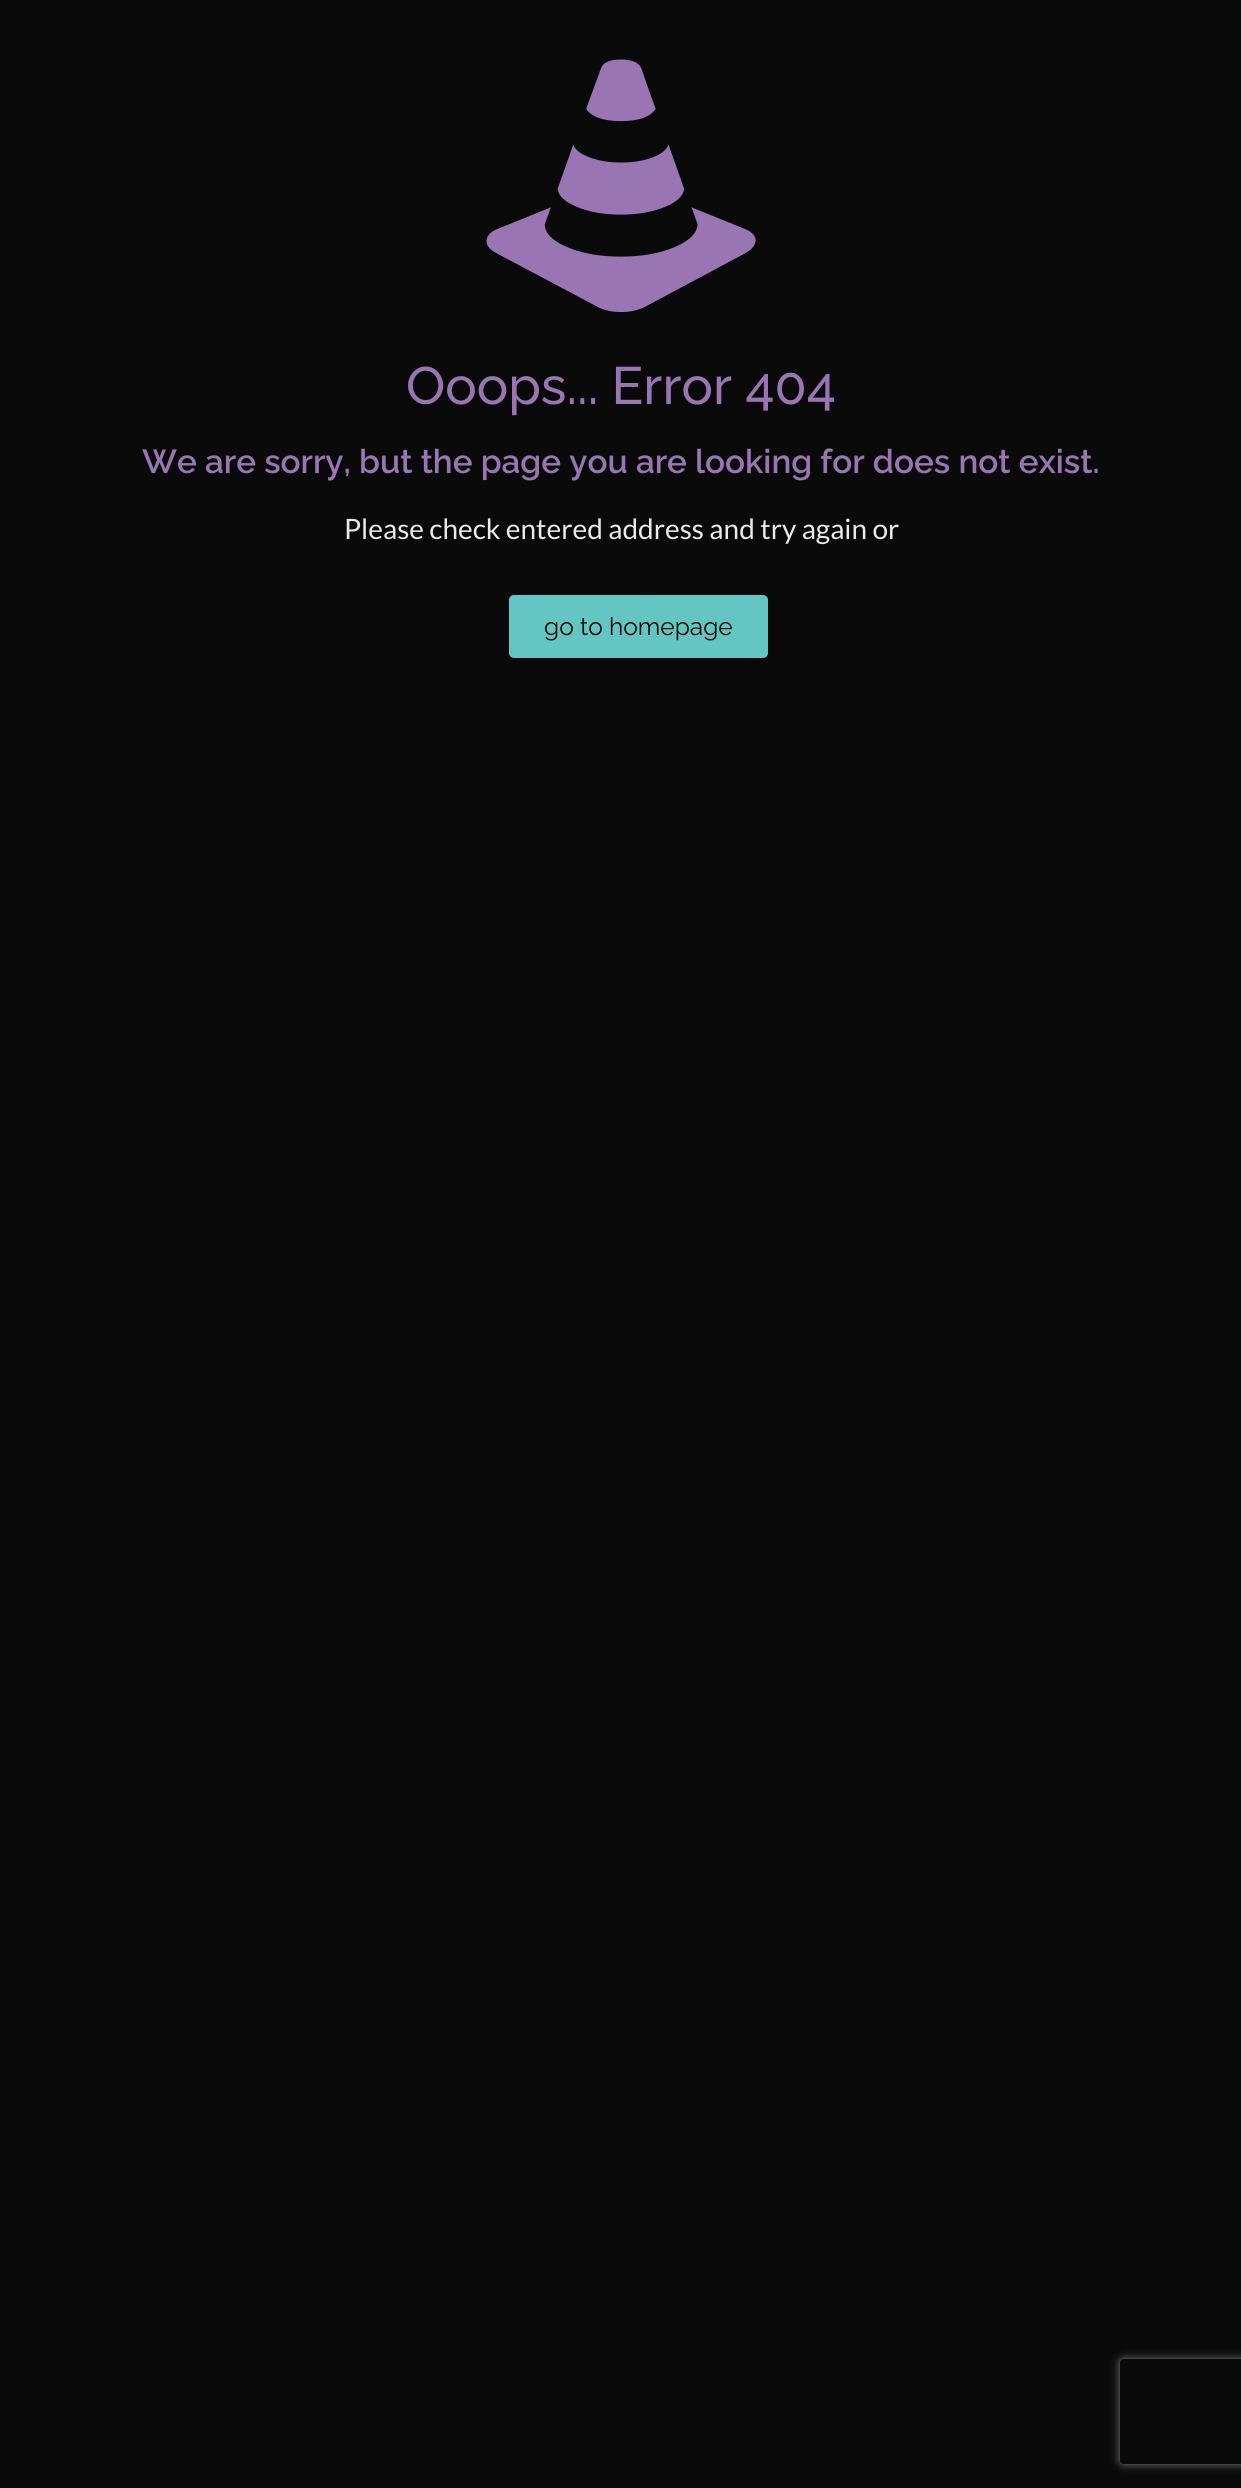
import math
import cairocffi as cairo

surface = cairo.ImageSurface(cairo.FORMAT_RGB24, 1241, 2488)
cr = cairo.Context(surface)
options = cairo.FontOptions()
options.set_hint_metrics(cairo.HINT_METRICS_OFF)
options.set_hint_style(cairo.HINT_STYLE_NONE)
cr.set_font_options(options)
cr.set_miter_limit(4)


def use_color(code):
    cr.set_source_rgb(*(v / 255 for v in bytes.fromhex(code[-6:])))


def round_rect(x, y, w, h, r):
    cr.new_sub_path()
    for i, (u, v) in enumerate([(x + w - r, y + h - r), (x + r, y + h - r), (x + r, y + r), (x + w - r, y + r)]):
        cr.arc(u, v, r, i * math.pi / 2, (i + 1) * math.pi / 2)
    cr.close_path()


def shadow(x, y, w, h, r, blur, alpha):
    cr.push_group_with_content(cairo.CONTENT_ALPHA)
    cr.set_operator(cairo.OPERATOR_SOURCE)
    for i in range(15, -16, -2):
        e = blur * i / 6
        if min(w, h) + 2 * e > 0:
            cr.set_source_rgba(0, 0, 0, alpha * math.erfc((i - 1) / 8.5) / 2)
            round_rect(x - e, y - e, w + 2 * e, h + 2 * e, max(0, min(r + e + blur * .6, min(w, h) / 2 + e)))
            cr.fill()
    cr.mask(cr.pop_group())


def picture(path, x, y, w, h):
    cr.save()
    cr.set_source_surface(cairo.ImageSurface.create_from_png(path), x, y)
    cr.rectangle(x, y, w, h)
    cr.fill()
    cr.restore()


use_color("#0a0a0a")
cr.paint()
picture("img1.png", 486, 59, 270, 254)
cr.select_font_face("Raleway Medium")
cr.set_font_size(52.5)
use_color("#9a75b4")
cr.move_to(406, 404)
cr.show_text("Ooops... Error 404")
cr.select_font_face("Raleway SemiBold")
cr.set_font_size(33.25)
cr.move_to(142, 473)
cr.show_text("We are sorry, but the page you are looking for does not exist.")
cr.select_font_face("Lato")
cr.set_font_size(28)
use_color("#eaeaea")
cr.move_to(344, 539)
cr.show_text("Please check entered address and try again or")
use_color("#64c6c2")
round_rect(509, 595, 259, 63, 5)
cr.fill()
cr.select_font_face("Raleway Thin")
cr.set_font_size(24.5)
use_color("#0a0a0a")
cr.move_to(544, 635)
cr.show_text("go to homepage")
cr.save()
cr.set_fill_rule(cairo.FILL_RULE_EVEN_ODD)
cr.new_path()
cr.move_to(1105, 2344)
cr.line_to(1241, 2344)
cr.line_to(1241, 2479)
cr.line_to(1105, 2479)
cr.close_path()
cr.move_to(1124, 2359)
cr.line_to(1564, 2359)
cr.curve_to(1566, 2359, 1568, 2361, 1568, 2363)
cr.line_to(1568, 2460)
cr.curve_to(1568, 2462, 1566, 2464, 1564, 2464)
cr.line_to(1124, 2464)
cr.curve_to(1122, 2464, 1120, 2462, 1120, 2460)
cr.line_to(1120, 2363)
cr.curve_to(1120, 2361, 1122, 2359, 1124, 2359)
cr.close_path()
cr.clip()
use_color("#808080")
shadow(1120, 2359, 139, 105, 4, 4.5, 1)
cr.restore()
surface.write_to_png("result.png")
